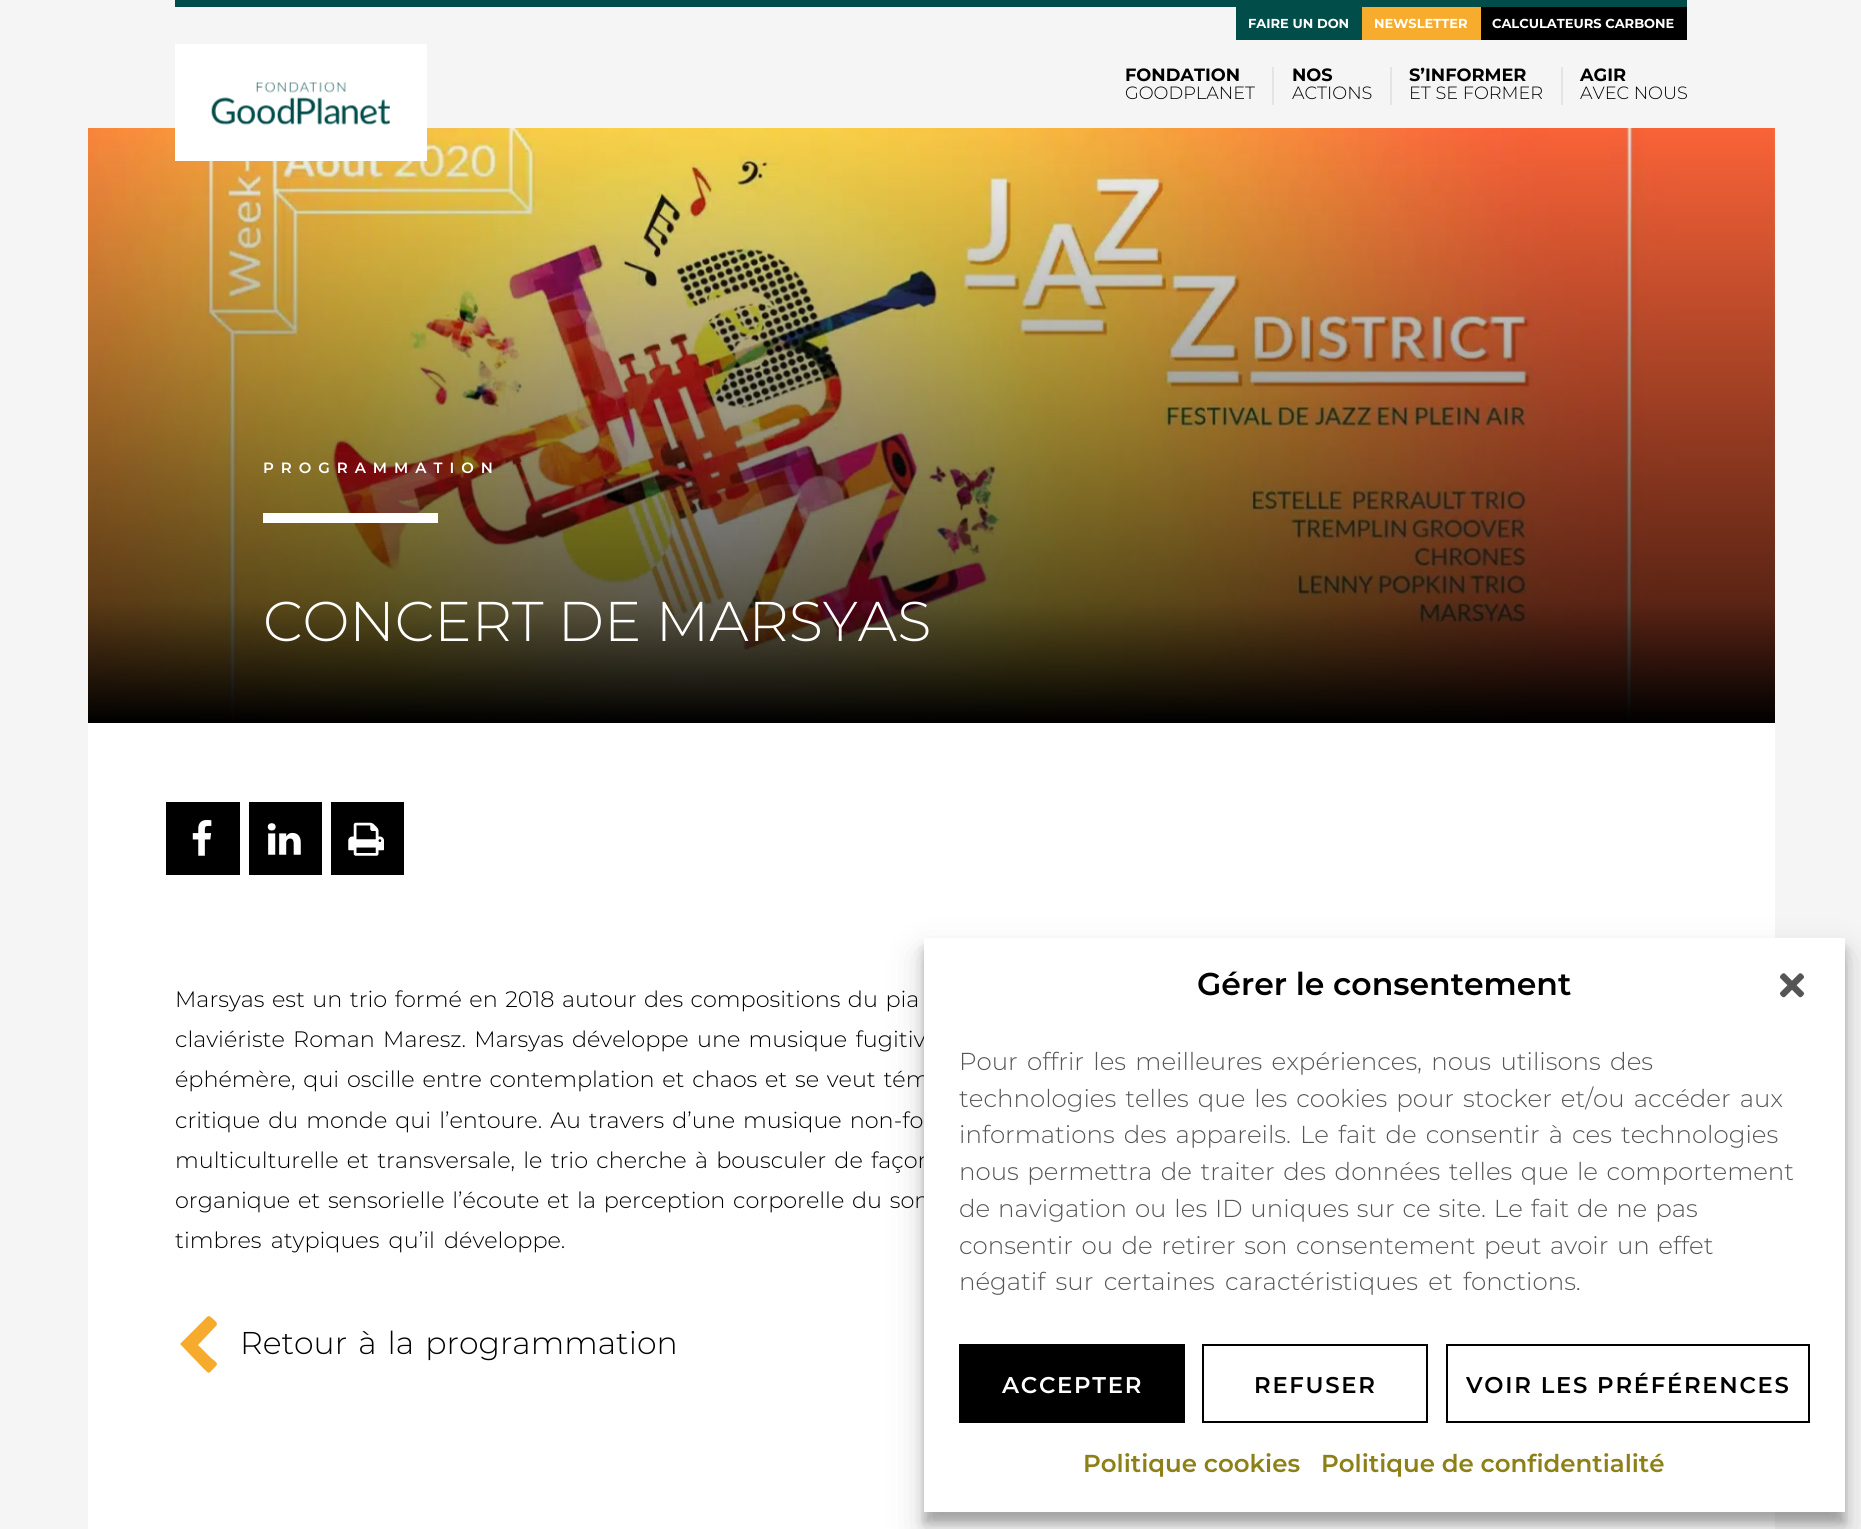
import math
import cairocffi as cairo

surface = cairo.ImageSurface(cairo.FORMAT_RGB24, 1861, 1529)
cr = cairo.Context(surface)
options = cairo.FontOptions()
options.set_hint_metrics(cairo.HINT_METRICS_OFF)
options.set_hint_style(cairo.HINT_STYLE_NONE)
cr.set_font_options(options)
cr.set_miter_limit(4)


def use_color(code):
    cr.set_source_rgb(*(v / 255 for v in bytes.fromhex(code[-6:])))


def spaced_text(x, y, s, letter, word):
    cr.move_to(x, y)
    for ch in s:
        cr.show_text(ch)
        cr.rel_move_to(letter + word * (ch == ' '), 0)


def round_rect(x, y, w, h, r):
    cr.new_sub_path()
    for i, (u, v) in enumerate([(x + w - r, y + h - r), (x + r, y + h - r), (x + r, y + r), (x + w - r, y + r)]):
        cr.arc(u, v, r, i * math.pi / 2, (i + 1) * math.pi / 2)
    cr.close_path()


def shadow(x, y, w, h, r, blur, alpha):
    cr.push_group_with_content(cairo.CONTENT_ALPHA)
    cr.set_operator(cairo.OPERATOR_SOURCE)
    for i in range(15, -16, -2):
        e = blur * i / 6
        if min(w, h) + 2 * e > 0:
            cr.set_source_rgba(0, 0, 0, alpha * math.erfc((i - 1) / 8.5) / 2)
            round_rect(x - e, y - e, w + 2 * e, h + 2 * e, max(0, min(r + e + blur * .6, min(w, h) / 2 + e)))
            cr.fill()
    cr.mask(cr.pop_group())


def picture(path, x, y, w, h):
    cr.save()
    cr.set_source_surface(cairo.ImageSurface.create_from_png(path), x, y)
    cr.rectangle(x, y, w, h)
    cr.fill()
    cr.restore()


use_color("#f5f5f5")
cr.paint()
use_color("#014d4a")
cr.rectangle(175, 0, 1512, 7)
cr.fill()
picture("img2.png", 88, 128, 1687, 593)
gradient = cairo.LinearGradient(931, 112, 931, 723)
gradient.add_color_stop_rgba(0, 0, 0, 0, 0)
gradient.add_color_stop_rgba(0.8, 0, 0, 0, 0.64)
gradient.add_color_stop_rgba(1, 0, 0, 0, 1)
cr.set_source(gradient)
cr.rectangle(88, 128, 1687, 595)
cr.fill()
use_color("#ffffff")
cr.rectangle(175, 44, 252, 117)
cr.fill()
picture("img1.png", 211, 82, 180, 43)
use_color("#014d4a")
cr.rectangle(1236, 7, 126, 33)
cr.fill()
cr.select_font_face("Montserrat", cairo.FONT_SLANT_NORMAL, cairo.FONT_WEIGHT_BOLD)
cr.set_font_size(13)
use_color("#ffffff")
cr.move_to(1248, 28)
cr.show_text("FAIRE UN DON")
use_color("#f8ac2d")
cr.rectangle(1362, 7, 119, 33)
cr.fill()
use_color("#ffffff")
cr.move_to(1374, 28)
cr.show_text("NEWSLETTER")
use_color("#000000")
cr.rectangle(1481, 7, 206, 33)
cr.fill()
use_color("#ffffff")
cr.move_to(1492, 28)
cr.show_text("CALCULATEURS CARBONE")
cr.set_font_size(17.75)
use_color("#000000")
cr.move_to(1125, 81)
cr.show_text("FONDATION")
cr.select_font_face("Montserrat Light")
cr.move_to(1125, 99)
cr.show_text("GOODPLANET")
use_color("#e4e4e4")
cr.rectangle(1272, 67, 2, 38)
cr.fill()
cr.select_font_face("Montserrat", cairo.FONT_SLANT_NORMAL, cairo.FONT_WEIGHT_BOLD)
use_color("#000000")
cr.move_to(1292, 81)
cr.show_text("NOS")
cr.select_font_face("Montserrat Light")
cr.move_to(1292, 99)
cr.show_text("ACTIONS")
use_color("#e4e4e4")
cr.rectangle(1390, 67, 2, 38)
cr.fill()
cr.select_font_face("Montserrat", cairo.FONT_SLANT_NORMAL, cairo.FONT_WEIGHT_BOLD)
use_color("#000000")
cr.move_to(1409, 81)
cr.show_text("S’INFORMER")
cr.select_font_face("Montserrat Light")
cr.move_to(1409, 99)
cr.show_text("ET SE FORMER")
use_color("#e4e4e4")
cr.rectangle(1561, 67, 2, 38)
cr.fill()
cr.select_font_face("Montserrat", cairo.FONT_SLANT_NORMAL, cairo.FONT_WEIGHT_BOLD)
use_color("#000000")
cr.move_to(1580, 81)
cr.show_text("AGIR")
cr.select_font_face("Montserrat Light")
cr.move_to(1580, 99)
cr.show_text("AVEC NOUS")
cr.select_font_face("Montserrat SemiBold")
cr.set_font_size(14.9)
use_color("#ffffff")
spaced_text(263, 473, "PROGRAMMATION", 7, 0)
cr.rectangle(263, 513, 175, 10)
cr.fill()
cr.select_font_face("Montserrat Light")
cr.set_font_size(55.9)
cr.move_to(263, 641)
cr.show_text("CONCERT DE MARSYAS")
cr.rectangle(88, 723, 1687, 806)
cr.fill()
use_color("#000000")
cr.rectangle(166, 802, 74, 73)
cr.fill()
picture("img3.png", 192, 820, 20, 36)
cr.rectangle(249, 802, 73, 73)
cr.fill()
picture("img4.png", 267, 823, 34, 32)
cr.rectangle(331, 802, 73, 73)
cr.fill()
picture("img5.png", 348, 822, 36, 34)
cr.set_font_size(22.35)
spaced_text(175, 1007, "Marsyas est un trio formé en 2018 autour des compositions du pia", 0, 1.75)
spaced_text(175, 1047, "claviériste Roman Maresz. Marsyas développe une musique fugitiv", 0, 2.5)
spaced_text(175, 1087, "éphémère, qui oscille entre contemplation et chaos et se veut tém", 0, 2)
spaced_text(175, 1128, "critique du monde qui l’entoure. Au travers d’une musique non-fo", 0, 2.25)
spaced_text(175, 1168, "multiculturelle et transversale, le trio cherche à bousculer de façon", 0, 2.5)
spaced_text(175, 1208, "organique et sensorielle l’écoute et la perception corporelle du son", 0, 2)
spaced_text(175, 1248, "timbres atypiques qu’il développe.", 0, 3.5)
use_color("#f6ab2e")
cr.new_path()
cr.move_to(216, 1326)
cr.line_to(198, 1345)
cr.line_to(210, 1357)
cr.curve_to(214, 1361, 220, 1363, 215, 1367)
cr.curve_to(208, 1374, 210, 1375, 203, 1368)
cr.line_to(181, 1345)
cr.line_to(180, 1344)
cr.line_to(203, 1321)
cr.curve_to(208, 1316, 208, 1314, 213, 1319)
cr.curve_to(214, 1320, 219, 1323, 216, 1326)
cr.close_path()
cr.fill()
cr.set_font_size(31.5)
use_color("#000000")
spaced_text(240, 1354, "Retour à la programmation", 0, 3)
use_color("#000000")
shadow(924, 949, 921, 574, 0, 5, 0.23)
shadow(924, 956, 921, 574, 0, 17.5, 0.19)
use_color("#ffffff")
cr.rectangle(924, 938, 921, 574)
cr.fill()
cr.select_font_face("Montserrat SemiBold")
use_color("#000000")
cr.move_to(1197, 995)
cr.show_text("Gérer le consentement")
picture("img6.png", 1780, 973, 24, 25)
cr.select_font_face("Montserrat Light")
cr.set_font_size(24.5)
use_color("#555555")
spaced_text(959, 1070, "Pour offrir les meilleures expériences, nous utilisons des", 0, 3)
spaced_text(959, 1107, "technologies telles que les cookies pour stocker et/ou accéder aux", 0, 2.75)
spaced_text(959, 1143, "informations des appareils. Le fait de consentir à ces technologies", 0, 2.75)
spaced_text(959, 1180, "nous permettra de traiter des données telles que le comportement", 0, 2.25)
spaced_text(959, 1217, "de navigation ou les ID uniques sur ce site. Le fait de ne pas", 0, 1.6)
spaced_text(959, 1254, "consentir ou de retirer son consentement peut avoir un effet", 0, 2.25)
spaced_text(959, 1290, "négatif sur certaines caractéristiques et fonctions.", 0, 4)
use_color("#000000")
cr.rectangle(959, 1344, 226, 79)
cr.fill()
cr.select_font_face("Montserrat SemiBold")
cr.set_font_size(22.75)
use_color("#ffffff")
spaced_text(1002, 1393, "ACCEPTER", 1.75, 0)
cr.rectangle(1203, 1345, 224, 77)
use_color("#000000")
cr.stroke()
spaced_text(1254, 1393, "REFUSER", 1.75, 0)
cr.rectangle(1447, 1345, 362, 77)
cr.stroke()
spaced_text(1466, 1393, "VOIR LES PRÉFÉRENCES", 1.75, 0)
cr.set_font_size(24.5)
use_color("#8d8017")
cr.move_to(1083, 1472)
cr.show_text("Politique cookies")
cr.move_to(1321, 1472)
cr.show_text("Politique de confidentialité")
surface.write_to_png("result.png")
